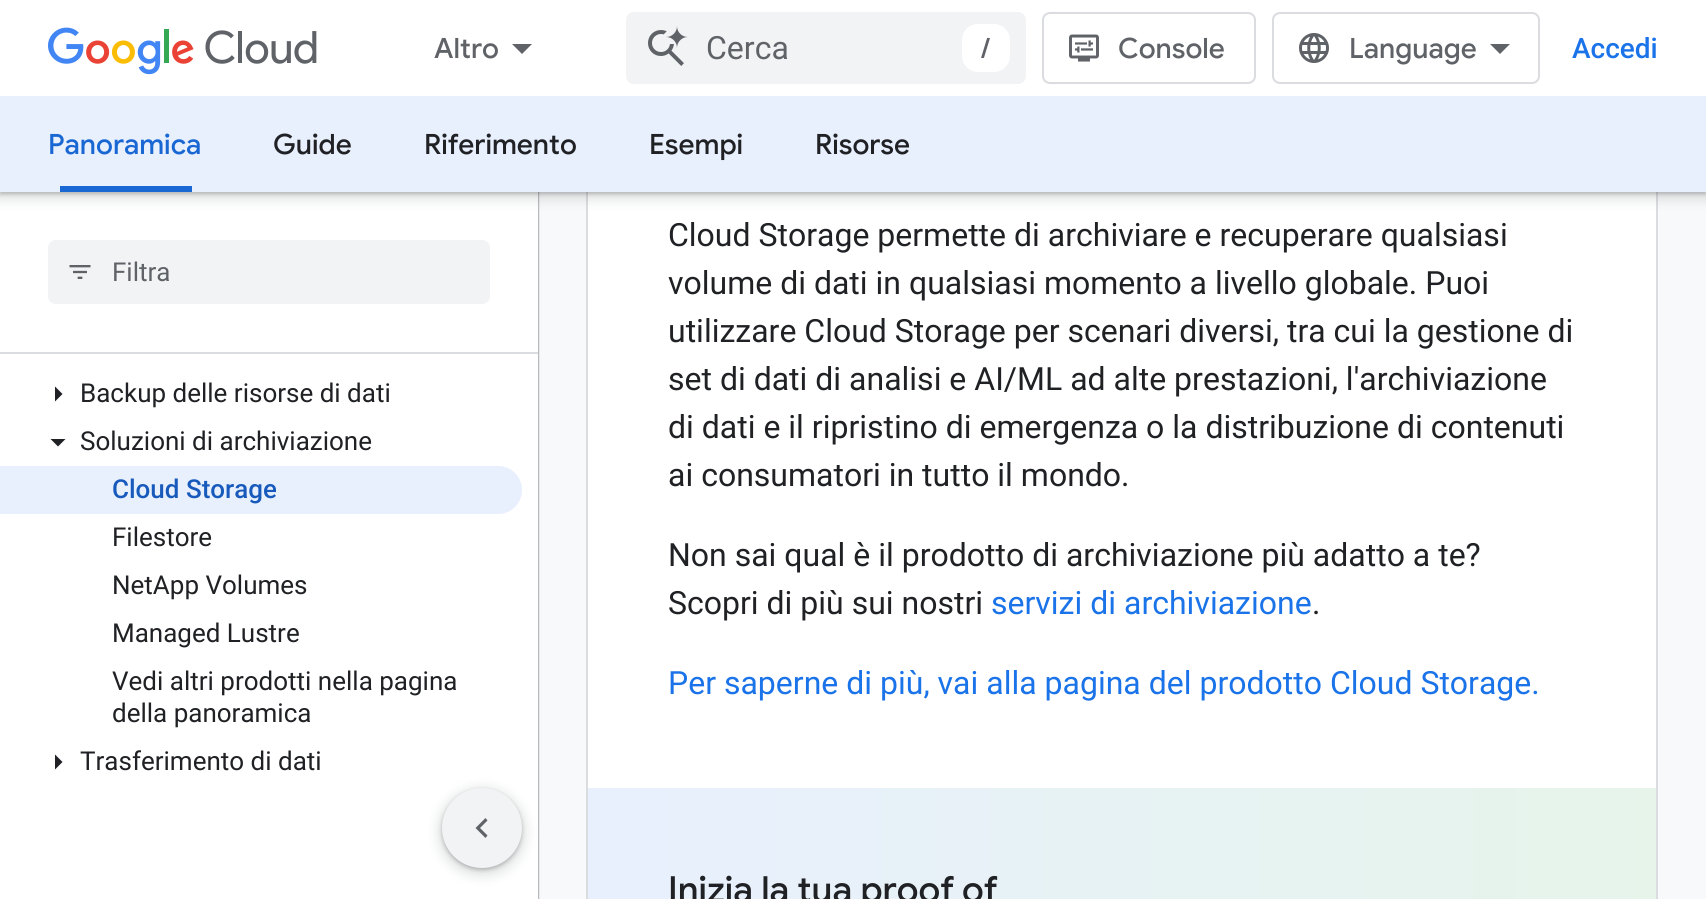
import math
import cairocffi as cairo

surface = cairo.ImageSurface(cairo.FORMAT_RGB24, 1706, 899)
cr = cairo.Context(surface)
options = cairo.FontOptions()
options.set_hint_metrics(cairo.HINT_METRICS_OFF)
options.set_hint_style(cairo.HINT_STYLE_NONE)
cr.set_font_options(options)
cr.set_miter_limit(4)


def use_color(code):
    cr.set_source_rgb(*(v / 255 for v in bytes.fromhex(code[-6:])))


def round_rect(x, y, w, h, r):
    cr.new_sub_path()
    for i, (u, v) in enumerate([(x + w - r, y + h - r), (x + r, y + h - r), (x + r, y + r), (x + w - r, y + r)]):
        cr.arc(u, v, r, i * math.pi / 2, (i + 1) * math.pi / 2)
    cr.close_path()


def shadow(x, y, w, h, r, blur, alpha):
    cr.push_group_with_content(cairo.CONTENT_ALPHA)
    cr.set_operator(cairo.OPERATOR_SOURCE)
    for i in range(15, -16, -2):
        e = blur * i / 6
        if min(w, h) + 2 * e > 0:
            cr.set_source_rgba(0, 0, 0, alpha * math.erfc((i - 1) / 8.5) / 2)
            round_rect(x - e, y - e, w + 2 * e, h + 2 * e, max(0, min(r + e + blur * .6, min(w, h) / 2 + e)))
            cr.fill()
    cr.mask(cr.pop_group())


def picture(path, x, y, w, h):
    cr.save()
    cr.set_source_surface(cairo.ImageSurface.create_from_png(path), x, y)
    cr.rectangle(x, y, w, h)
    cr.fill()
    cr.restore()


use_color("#f8f9fa")
cr.paint()
use_color("#3c4043")
shadow(0, 2, 538, 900, 0, 1, 1)
use_color("#ffffff")
cr.rectangle(0, 354, 538, 545)
cr.fill()
cr.rectangle(0, 192, 538, 160)
cr.fill()
cr.rectangle(588, 192, 1068, 596)
cr.fill()
cr.rectangle(587, -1, 1070, 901)
use_color("#dadce0")
cr.stroke()
use_color("#3c4043")
shadow(-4, -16, 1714, 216, 0, 6, 0.15)
shadow(0, -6, 1706, 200, 0, 2, 0.3)
use_color("#ffffff")
cr.rectangle(0, 0, 1706, 96)
cr.fill()
picture("img1.png", 48, 27, 269, 48)
cr.select_font_face("Google Sans Medium")
cr.set_font_size(28)
use_color("#5f6368")
cr.move_to(434, 58)
cr.show_text("Altro")
cr.new_path()
cr.move_to(512, 44)
cr.line_to(532, 44)
cr.line_to(522, 54)
cr.close_path()
cr.fill()
use_color("#f1f3f4")
round_rect(626, 12, 400, 72, 8)
cr.fill()
picture("img2.png", 648, 26, 40, 40)
cr.select_font_face("Roboto")
cr.set_font_size(32)
use_color("#5f6368")
cr.move_to(706, 59)
cr.show_text("Cerca")
use_color("#ffffff")
round_rect(962, 24, 48, 48, 16)
cr.fill()
cr.select_font_face("Google Sans Medium")
cr.set_font_size(28)
use_color("#5f6368")
cr.move_to(981, 58)
cr.show_text("/")
round_rect(1043, 13, 212, 70, 7)
use_color("#dadce0")
cr.stroke()
picture("img3.png", 1069, 34, 30, 28)
use_color("#5f6368")
cr.move_to(1118, 58)
cr.show_text("Console")
round_rect(1273, 13, 266, 70, 7)
use_color("#dadce0")
cr.stroke()
picture("img4.png", 1299, 33, 30, 30)
use_color("#5f6368")
cr.move_to(1349, 58)
cr.show_text("Language")
cr.new_path()
cr.move_to(1500, 54)
cr.line_to(1490, 44)
cr.line_to(1510, 44)
cr.close_path()
cr.fill()
cr.select_font_face("Roboto Medium")
use_color("#1a73e8")
cr.move_to(1572, 58)
cr.show_text("Accedi")
use_color("#e8f0fe")
cr.rectangle(0, 96, 1706, 96)
cr.fill()
cr.select_font_face("Google Sans Medium")
use_color("#1967d2")
cr.move_to(48, 154)
cr.show_text("Panoramica")
cr.rectangle(60, 186, 132, 6)
cr.fill()
use_color("#202124")
cr.move_to(273, 154)
cr.show_text("Guide")
cr.move_to(424, 154)
cr.show_text("Riferimento")
cr.move_to(649, 154)
cr.show_text("Esempi")
cr.move_to(815, 154)
cr.show_text("Risorse")
use_color("#dadce0")
cr.rectangle(0, 352, 538, 2)
cr.fill()
use_color("#f1f3f4")
round_rect(48, 240, 442, 64, 8)
cr.fill()
picture("img5.png", 69, 265, 22, 14)
cr.select_font_face("Roboto")
cr.set_font_size(26)
use_color("#5f6368")
cr.move_to(112, 281)
cr.show_text("Filtra")
use_color("#202124")
cr.new_path()
cr.move_to(55, 401.5)
cr.line_to(55, 386.5)
cr.line_to(62.5, 394)
cr.close_path()
cr.fill()
cr.move_to(80, 402)
cr.show_text("Backup delle risorse di dati")
cr.new_path()
cr.move_to(50.5, 439)
cr.line_to(65.5, 439)
cr.line_to(58, 446.5)
cr.close_path()
cr.fill()
cr.move_to(80, 450)
cr.show_text("Soluzioni di archiviazione")
use_color("#e8f0fe")
cr.new_path()
cr.move_to(0, 466)
cr.line_to(498, 466)
cr.curve_to(511.5, 466, 522, 476.5, 522, 490)
cr.curve_to(522, 503.5, 511.5, 514, 498, 514)
cr.line_to(0, 514)
cr.close_path()
cr.fill()
cr.save()
cr.rectangle(112, 466, 164, 272)
cr.clip()
cr.select_font_face("Roboto Medium")
use_color("#185abc")
cr.move_to(112, 498)
cr.show_text("Cloud Storage")
cr.restore()
use_color("#202124")
cr.move_to(112, 546)
cr.show_text("Filestore")
cr.move_to(112, 594)
cr.show_text("NetApp Volumes")
cr.move_to(112, 642)
cr.show_text("Managed Lustre")
cr.move_to(112, 690)
cr.show_text("Vedi altri prodotti nella pagina")
cr.move_to(112, 722)
cr.show_text("della panoramica")
cr.new_path()
cr.move_to(55, 769.5)
cr.line_to(55, 754.5)
cr.line_to(62.5, 762)
cr.close_path()
cr.fill()
cr.move_to(80, 770)
cr.show_text("Trasferimento di dati")
cr.set_font_size(32)
cr.move_to(668, 246)
cr.show_text("Cloud Storage permette di archiviare e recuperare qualsiasi")
cr.move_to(668, 294)
cr.show_text("volume di dati in qualsiasi momento a livello globale. Puoi")
cr.move_to(668, 342)
cr.show_text("utilizzare Cloud Storage per scenari diversi, tra cui la gestione di")
cr.move_to(668, 390)
cr.show_text("set di dati di analisi e AI/ML ad alte prestazioni, l'archiviazione")
cr.move_to(668, 438)
cr.show_text("di dati e il ripristino di emergenza o la distribuzione di contenuti")
cr.move_to(668, 486)
cr.show_text("ai consumatori in tutto il mondo.")
cr.move_to(668, 566)
cr.show_text("Non sai qual è il prodotto di archiviazione più adatto a te?")
cr.move_to(668, 614)
cr.show_text("Scopri di più sui nostri")
use_color("#1a73e8")
cr.move_to(991, 614)
cr.show_text("servizi di archiviazione")
use_color("#202124")
cr.move_to(1312, 614)
cr.show_text(".")
use_color("#1a73e8")
cr.move_to(668, 694)
cr.show_text("Per saperne di più, vai alla pagina del prodotto Cloud Storage.")
gradient = cairo.LinearGradient(588, 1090, 1656, 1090)
gradient.add_color_stop_rgba(0, 0.91, 0.941, 0.996, 1)
gradient.add_color_stop_rgba(1, 0.902, 0.957, 0.918, 1)
cr.set_source(gradient)
cr.rectangle(588, 788, 1068, 111)
cr.fill()
cr.select_font_face("Google Sans Medium")
cr.set_font_size(36)
use_color("#202124")
cr.move_to(668, 902)
cr.show_text("Inizia la tua proof of")
use_color("#3c4043")
shadow(438, 788, 88, 88, 44, 6, 0.15)
shadow(442, 790, 80, 80, 40, 2, 0.3)
use_color("#f1f3f4")
cr.arc(482, 828, 40, 0, 2 * math.pi)
cr.fill()
use_color("#5f6368")
cr.new_path()
cr.move_to(487.5, 820.5)
cr.line_to(480, 828)
cr.line_to(487.5, 835.5)
cr.line_to(485.5, 838)
cr.line_to(475.5, 828)
cr.line_to(485.5, 818)
cr.close_path()
cr.fill()
surface.write_to_png("result.png")
